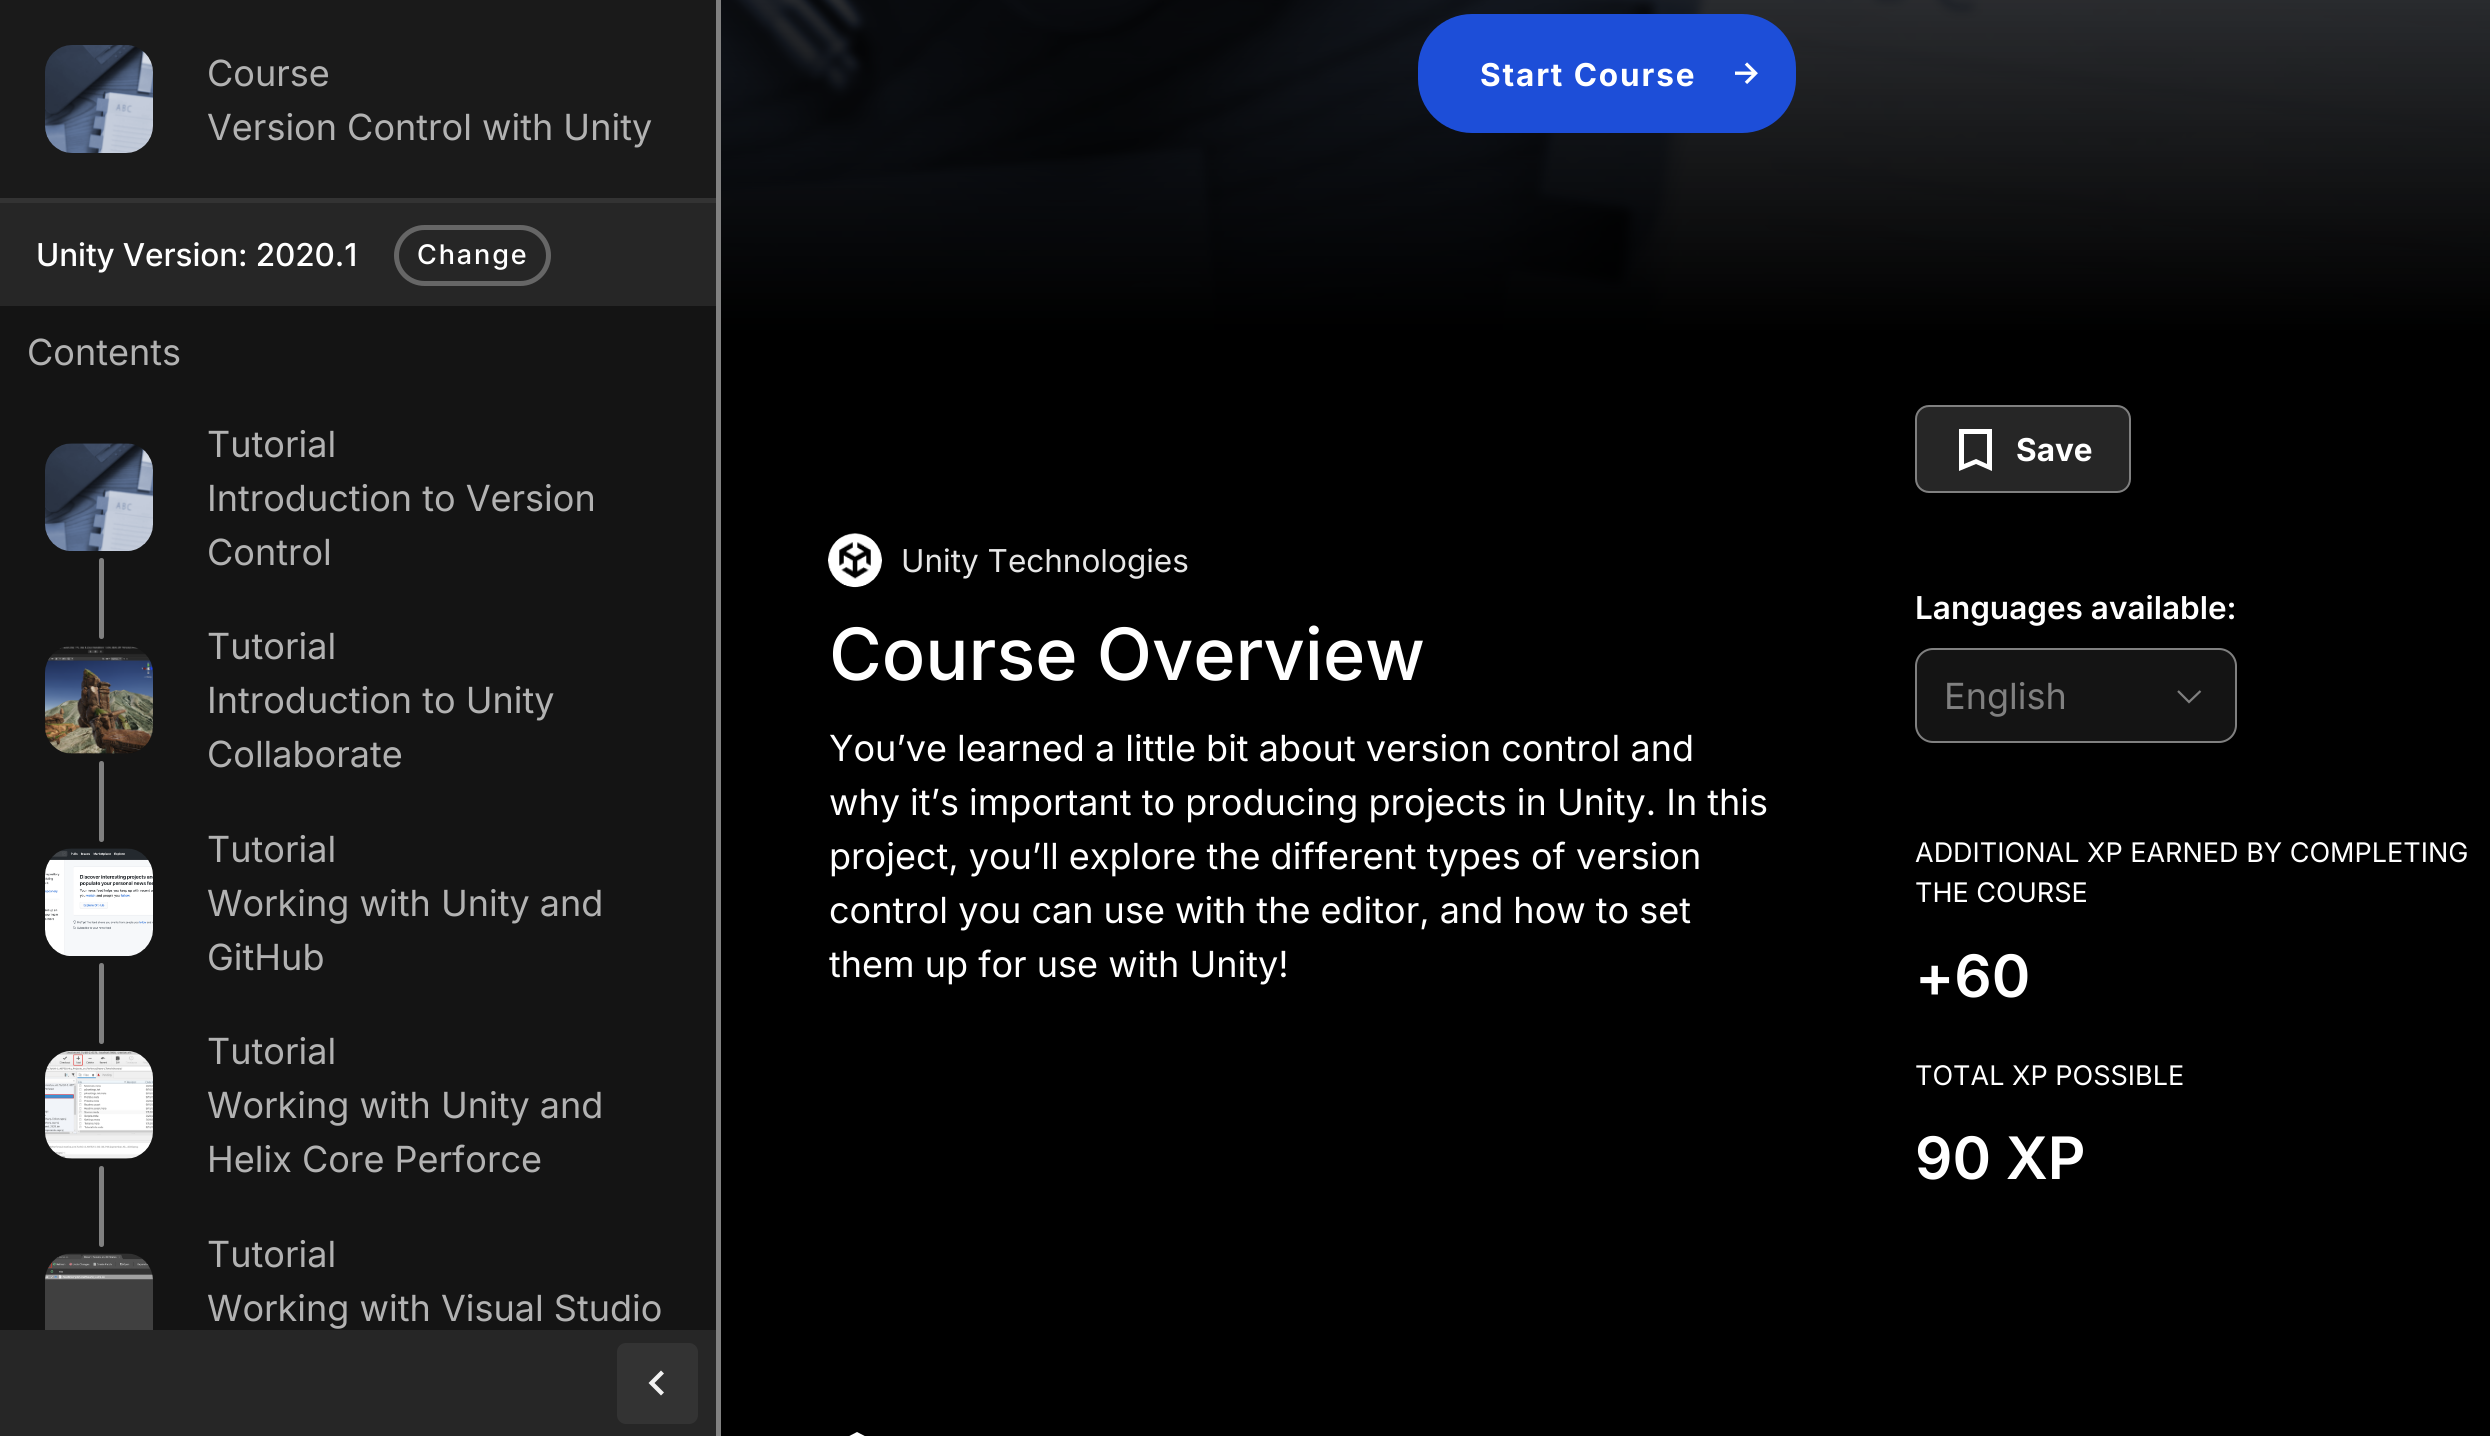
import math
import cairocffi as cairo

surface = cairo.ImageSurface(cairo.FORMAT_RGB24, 2490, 1436)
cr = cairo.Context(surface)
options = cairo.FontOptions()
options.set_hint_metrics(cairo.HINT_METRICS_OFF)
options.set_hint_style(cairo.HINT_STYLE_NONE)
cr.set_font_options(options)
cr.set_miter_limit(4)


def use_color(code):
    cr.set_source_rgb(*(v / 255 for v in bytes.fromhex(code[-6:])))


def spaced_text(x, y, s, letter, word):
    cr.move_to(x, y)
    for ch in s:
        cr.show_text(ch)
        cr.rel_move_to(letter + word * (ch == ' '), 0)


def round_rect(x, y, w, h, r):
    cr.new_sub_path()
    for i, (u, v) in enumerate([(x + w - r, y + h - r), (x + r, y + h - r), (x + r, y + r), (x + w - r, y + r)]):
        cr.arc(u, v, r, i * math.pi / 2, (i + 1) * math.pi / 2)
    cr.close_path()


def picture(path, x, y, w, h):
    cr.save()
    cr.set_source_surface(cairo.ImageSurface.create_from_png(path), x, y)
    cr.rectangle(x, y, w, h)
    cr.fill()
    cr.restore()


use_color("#000000")
cr.paint()
use_color("#808080")
cr.rectangle(716, 0, 5, 1436)
cr.fill()
use_color("#141414")
cr.rectangle(0, 306, 716, 1024)
cr.fill()
use_color("#1a1a1a")
cr.rectangle(0, 0, 716, 198)
cr.fill()
use_color("#333333")
cr.rectangle(0, 198, 716, 5)
cr.fill()
picture("img1.png", 45, 45, 108, 108)
cr.select_font_face("Inter")
cr.set_font_size(36)
use_color("#b2b2b2")
cr.move_to(207, 86)
cr.show_text("Course")
cr.move_to(207, 140)
cr.show_text("Version Control with Unity")
use_color("#262626")
cr.rectangle(0, 203, 716, 103)
cr.fill()
cr.select_font_face("Inter Medium")
cr.set_font_size(31.5)
use_color("#ffffff")
spaced_text(36, 266, "Unity Version: 2020.1", -0.1, 0)
round_rect(396.5, 227.5, 152, 56, 28)
use_color("#666666")
cr.set_line_width(5)
cr.stroke()
cr.set_font_size(27)
use_color("#ffffff")
spaced_text(417, 264, "Change", 1.9, 0)
cr.select_font_face("Inter")
cr.set_font_size(36)
use_color("#b2b2b2")
cr.move_to(27, 365)
cr.show_text("Contents")
picture("img2.png", 45, 443, 108, 108)
use_color("#808080")
cr.new_path()
cr.move_to(101.5, 558)
cr.curve_to(103, 558, 104, 559, 104, 560.5)
cr.line_to(104, 599)
cr.line_to(99, 599)
cr.line_to(99, 560.5)
cr.curve_to(99, 559, 100, 558, 101.5, 558)
cr.close_path()
cr.fill()
use_color("#b2b2b2")
cr.move_to(207, 457)
cr.show_text("Tutorial")
cr.move_to(207, 511)
cr.show_text("Introduction to Version")
cr.move_to(207, 565)
cr.show_text("Control")
use_color("#808080")
cr.new_path()
cr.move_to(99, 599)
cr.line_to(104, 599)
cr.line_to(104, 636.5)
cr.curve_to(104, 638, 103, 639, 101.5, 639)
cr.curve_to(100, 639, 99, 638, 99, 636.5)
cr.close_path()
cr.fill()
picture("img3.png", 45, 646, 108, 108)
cr.new_path()
cr.move_to(101.5, 761)
cr.curve_to(103, 761, 104, 762, 104, 763.5)
cr.line_to(104, 801)
cr.line_to(99, 801)
cr.line_to(99, 763.5)
cr.curve_to(99, 762, 100, 761, 101.5, 761)
cr.close_path()
cr.fill()
use_color("#b2b2b2")
cr.move_to(207, 659)
cr.show_text("Tutorial")
cr.move_to(207, 713)
cr.show_text("Introduction to Unity")
cr.move_to(207, 767)
cr.show_text("Collaborate")
use_color("#808080")
cr.new_path()
cr.move_to(99, 801)
cr.line_to(104, 801)
cr.line_to(104, 839.5)
cr.curve_to(104, 841, 103, 842, 101.5, 842)
cr.curve_to(100, 842, 99, 841, 99, 839.5)
cr.close_path()
cr.fill()
picture("img4.png", 45, 848, 108, 108)
cr.new_path()
cr.move_to(101.5, 963)
cr.curve_to(103, 963, 104, 964, 104, 965.5)
cr.line_to(104, 1004)
cr.line_to(99, 1004)
cr.line_to(99, 965.5)
cr.curve_to(99, 964, 100, 963, 101.5, 963)
cr.close_path()
cr.fill()
use_color("#b2b2b2")
cr.move_to(207, 862)
cr.show_text("Tutorial")
cr.move_to(207, 916)
cr.show_text("Working with Unity and")
cr.move_to(207, 970)
cr.show_text("GitHub")
use_color("#808080")
cr.new_path()
cr.move_to(99, 1004)
cr.line_to(104, 1004)
cr.line_to(104, 1041.5)
cr.curve_to(104, 1043, 103, 1044, 101.5, 1044)
cr.curve_to(100, 1044, 99, 1043, 99, 1041.5)
cr.close_path()
cr.fill()
picture("img5.png", 45, 1051, 108, 108)
cr.new_path()
cr.move_to(101.5, 1166)
cr.curve_to(103, 1166, 104, 1167, 104, 1168.5)
cr.line_to(104, 1206)
cr.line_to(99, 1206)
cr.line_to(99, 1168.5)
cr.curve_to(99, 1167, 100, 1166, 101.5, 1166)
cr.close_path()
cr.fill()
use_color("#b2b2b2")
cr.move_to(207, 1064)
cr.show_text("Tutorial")
cr.move_to(207, 1118)
cr.show_text("Working with Unity and")
cr.move_to(207, 1172)
cr.show_text("Helix Core Perforce")
use_color("#808080")
cr.new_path()
cr.move_to(99, 1206)
cr.line_to(104, 1206)
cr.line_to(104, 1244.5)
cr.curve_to(104, 1246, 103, 1247, 101.5, 1247)
cr.curve_to(100, 1247, 99, 1246, 99, 1244.5)
cr.close_path()
cr.fill()
picture("img6.png", 45, 1253, 108, 77)
use_color("#b2b2b2")
cr.move_to(207, 1267)
cr.show_text("Tutorial")
cr.move_to(207, 1321)
cr.show_text("Working with Visual Studio")
use_color("#262626")
cr.rectangle(0, 1330, 716, 106)
cr.fill()
use_color("#333333")
round_rect(617, 1343, 81, 81, 9)
cr.fill()
use_color("#f2f2f2")
cr.new_path()
cr.move_to(664, 1373.5)
cr.line_to(661, 1370.5)
cr.line_to(648.5, 1383)
cr.line_to(661, 1395.5)
cr.line_to(664, 1392.5)
cr.line_to(654.5, 1383)
cr.close_path()
cr.fill()
picture("img7.png", 721, 0, 1769, 333)
use_color("#1d4ed8")
round_rect(1418, 14, 378, 119, 54)
cr.fill()
cr.select_font_face("Inter", cairo.FONT_SLANT_NORMAL, cairo.FONT_WEIGHT_BOLD)
cr.set_font_size(31.5)
use_color("#ffffff")
spaced_text(1480, 86, "Start Course", 1.9, 0)
picture("img8.png", 1735, 62, 23, 22)
picture("img9.png", 828, 533, 54, 55)
cr.select_font_face("Inter")
use_color("#e6e6e6")
cr.move_to(901, 572)
cr.show_text("Unity Technologies")
cr.select_font_face("Inter Medium")
cr.set_font_size(72)
use_color("#ffffff")
cr.move_to(829, 680)
cr.show_text("Course Overview")
cr.select_font_face("Inter")
cr.set_font_size(36)
cr.move_to(829, 761)
cr.show_text("You’ve learned a little bit about version control and")
cr.move_to(829, 815)
cr.show_text("why it’s important to producing projects in Unity. In this")
cr.move_to(829, 869)
cr.show_text("project, you’ll explore the different types of version")
cr.move_to(829, 923)
cr.show_text("control you can use with the editor, and how to set")
cr.move_to(829, 977)
cr.show_text("them up for use with Unity!")
use_color("#262626")
round_rect(1916, 406, 214, 86, 13)
cr.fill_preserve()
use_color("#808080")
cr.set_line_width(2)
cr.stroke()
use_color("#ffffff")
cr.new_path()
cr.move_to(1992, 429)
cr.line_to(1959, 429)
cr.line_to(1959, 471)
cr.line_to(1976, 464)
cr.line_to(1992, 471)
cr.close_path()
cr.move_to(1987, 464)
cr.line_to(1976, 459)
cr.line_to(1964, 464)
cr.line_to(1964, 434)
cr.line_to(1987, 434)
cr.close_path()
cr.fill()
cr.select_font_face("Inter", cairo.FONT_SLANT_NORMAL, cairo.FONT_WEIGHT_BOLD)
cr.set_font_size(31.5)
cr.move_to(2016, 461)
cr.show_text("Save")
cr.select_font_face("Inter SemiBold")
cr.move_to(1915, 619)
cr.show_text("Languages available:")
use_color("#141414")
round_rect(1916, 649, 320, 93, 17)
cr.fill_preserve()
use_color("#808080")
cr.stroke()
cr.select_font_face("Inter")
cr.set_font_size(36)
cr.move_to(1944, 709)
cr.show_text("English")
cr.new_path()
cr.move_to(2200.5, 691)
cr.line_to(2189, 702)
cr.line_to(2178, 691)
cr.set_line_width(2.2)
cr.stroke()
cr.set_font_size(27)
use_color("#ffffff")
cr.move_to(1915, 862)
cr.show_text("ADDITIONAL XP EARNED BY COMPLETING")
cr.move_to(1915, 902)
cr.show_text("THE COURSE")
cr.select_font_face("Inter SemiBold")
cr.set_font_size(58.5)
cr.move_to(1915, 997)
cr.show_text("+60")
cr.select_font_face("Inter")
cr.set_font_size(27)
cr.move_to(1915, 1085)
cr.show_text("TOTAL XP POSSIBLE")
cr.select_font_face("Inter SemiBold")
cr.set_font_size(58.5)
cr.move_to(1915, 1179)
cr.show_text("90 XP")
cr.new_path()
cr.move_to(839, 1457)
cr.line_to(839, 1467)
cr.line_to(857, 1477)
cr.line_to(876, 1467)
cr.line_to(876, 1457)
cr.line_to(857, 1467)
cr.close_path()
cr.move_to(857, 1432)
cr.line_to(828, 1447)
cr.line_to(857, 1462)
cr.line_to(881, 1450)
cr.line_to(881, 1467)
cr.line_to(886, 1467)
cr.line_to(886, 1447)
cr.close_path()
cr.fill()
surface.write_to_png("result.png")
